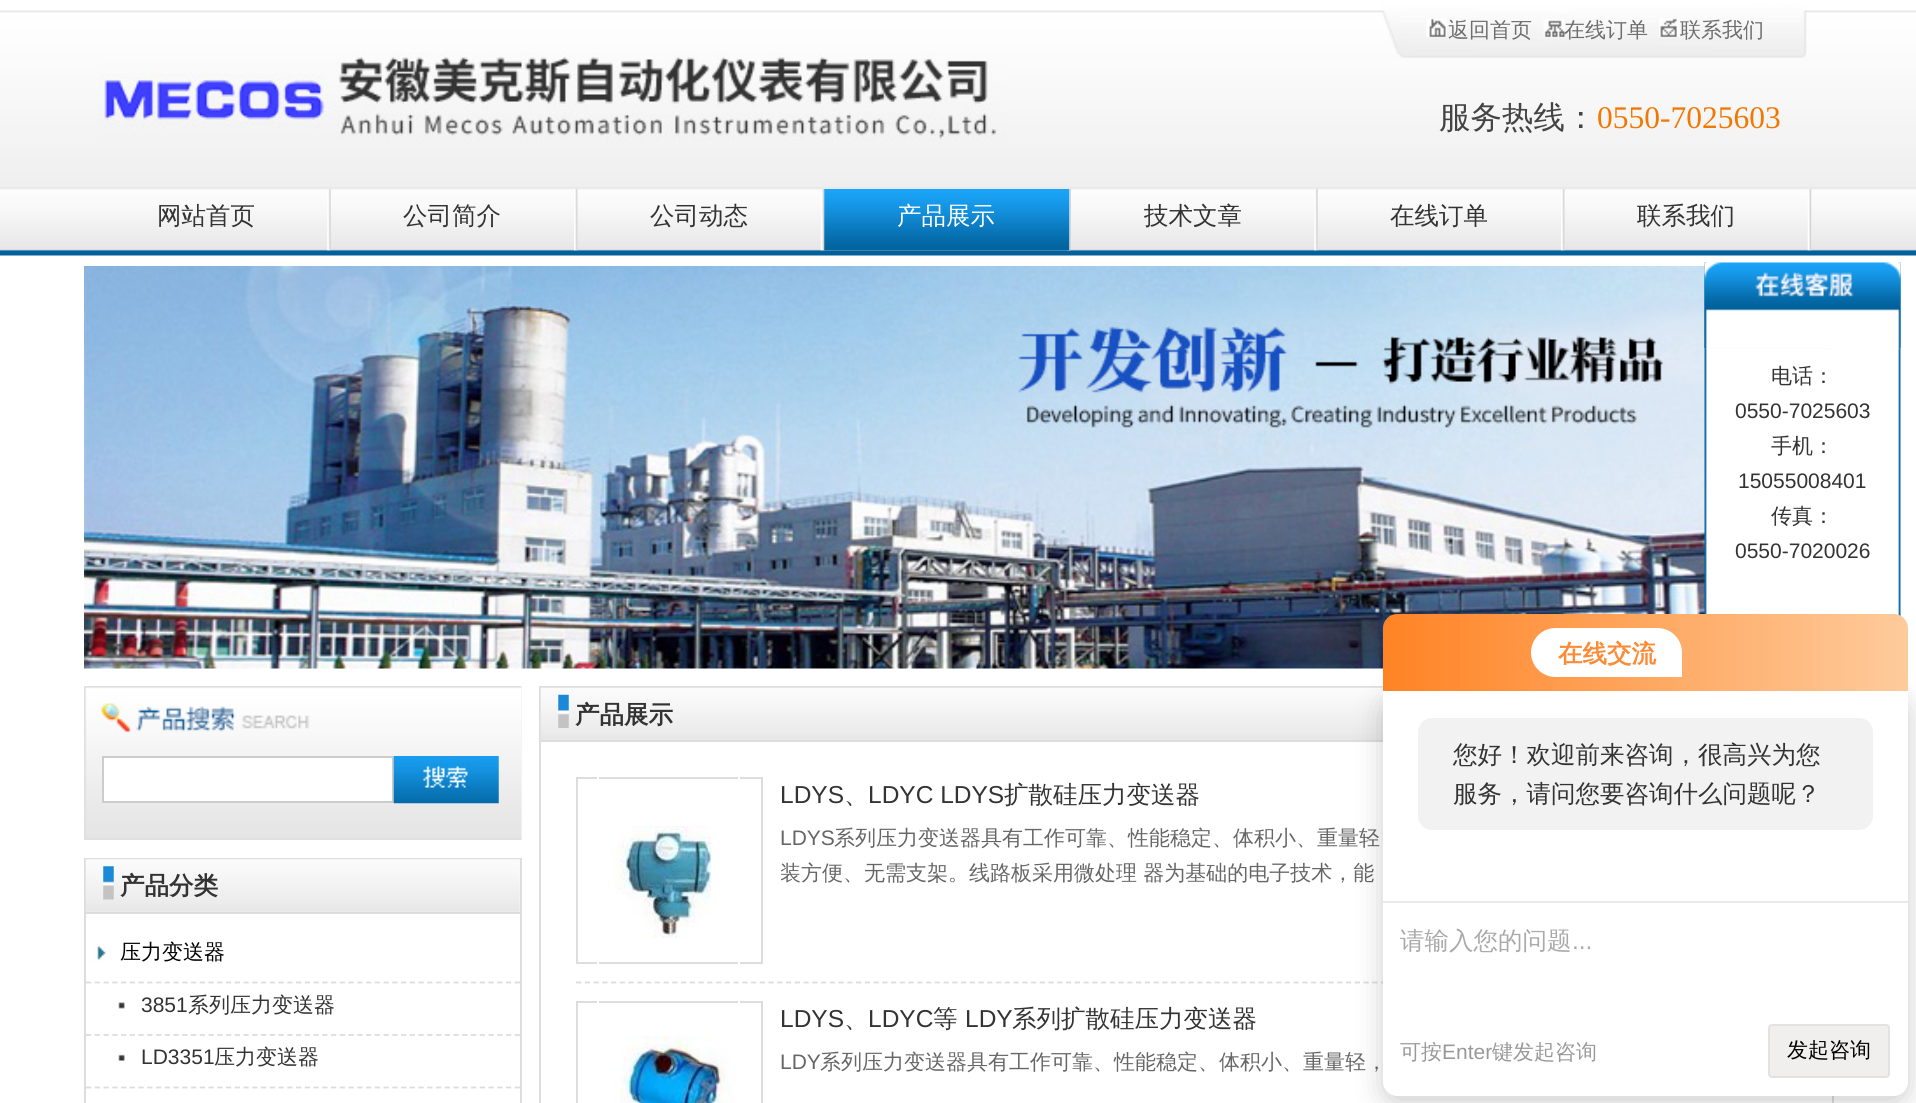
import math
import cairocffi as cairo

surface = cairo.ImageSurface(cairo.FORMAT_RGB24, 1916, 1103)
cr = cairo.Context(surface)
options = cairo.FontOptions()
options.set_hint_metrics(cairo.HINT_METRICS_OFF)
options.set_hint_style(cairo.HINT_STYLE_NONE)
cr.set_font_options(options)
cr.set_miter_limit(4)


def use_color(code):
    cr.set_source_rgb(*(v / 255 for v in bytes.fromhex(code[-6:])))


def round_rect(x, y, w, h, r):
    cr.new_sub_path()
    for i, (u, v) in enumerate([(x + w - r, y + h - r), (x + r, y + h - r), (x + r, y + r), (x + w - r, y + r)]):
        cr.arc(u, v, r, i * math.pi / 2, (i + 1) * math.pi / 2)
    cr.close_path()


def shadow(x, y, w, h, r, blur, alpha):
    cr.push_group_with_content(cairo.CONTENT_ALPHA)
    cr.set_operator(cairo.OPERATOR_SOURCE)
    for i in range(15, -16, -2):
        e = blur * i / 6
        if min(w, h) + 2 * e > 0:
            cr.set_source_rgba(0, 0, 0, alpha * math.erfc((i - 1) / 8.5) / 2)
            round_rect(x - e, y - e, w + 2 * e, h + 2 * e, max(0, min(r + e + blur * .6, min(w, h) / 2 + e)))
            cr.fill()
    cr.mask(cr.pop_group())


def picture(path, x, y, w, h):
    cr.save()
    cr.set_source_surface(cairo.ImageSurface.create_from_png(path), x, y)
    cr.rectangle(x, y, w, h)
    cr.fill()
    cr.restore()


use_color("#ffffff")
cr.paint()
picture("img1.png", 0, 10, 1916, 246)
picture("img2.png", 98, 52, 908, 89)
picture("img3.png", 1382, 4, 425, 54)
picture("img4.png", 1426, 18, 21, 19)
cr.select_font_face("WenQuanYi Zen Hei Medium")
cr.set_font_size(21)
use_color("#6e6e6e")
cr.move_to(1448, 37)
cr.show_text("返回首页")
picture("img5.png", 1543, 19, 22, 18)
cr.move_to(1564, 37)
cr.show_text("在线订单")
picture("img6.png", 1659, 18, 21, 19)
cr.move_to(1680, 37)
cr.show_text("联系我们")
cr.set_font_size(31.5)
use_color("#444444")
cr.move_to(1439, 128)
cr.show_text("服务热线：")
cr.select_font_face("Liberation Serif")
use_color("#f07803")
cr.move_to(1597, 128)
cr.show_text("0550-7025603")
picture("img7.png", 327, 189, 4, 62)
cr.select_font_face("WenQuanYi Zen Hei Medium")
cr.set_font_size(24.5)
use_color("#333333")
cr.move_to(157, 224)
cr.show_text("网站首页")
picture("img8.png", 574, 189, 4, 62)
cr.move_to(403, 224)
cr.show_text("公司简介")
picture("img9.png", 820, 189, 5, 62)
cr.move_to(650, 224)
cr.show_text("公司动态")
picture("img10.png", 1067, 189, 4, 62)
picture("img11.png", 824, 189, 246, 62)
use_color("#ffffff")
cr.move_to(897, 224)
cr.show_text("产品展示")
picture("img12.png", 1314, 189, 4, 62)
use_color("#333333")
cr.move_to(1144, 224)
cr.show_text("技术文章")
picture("img8.png", 1561, 189, 4, 62)
cr.move_to(1390, 224)
cr.show_text("在线订单")
picture("img13.png", 1807, 189, 5, 62)
cr.move_to(1637, 224)
cr.show_text("联系我们")
picture("img14.png", 84, 266, 1750, 403)
picture("img15.png", 1704, 262, 197, 87)
picture("img17.png", 1704, 348, 197, 268)
picture("img16.png", 1704, 262, 197, 87)
cr.set_font_size(21)
cr.move_to(1771, 383)
cr.show_text("电话：")
cr.select_font_face("Liberation Sans")
cr.move_to(1735, 418)
cr.show_text("0550-7025603")
cr.select_font_face("WenQuanYi Zen Hei Medium")
cr.move_to(1771, 453)
cr.show_text("手机：")
cr.select_font_face("Liberation Sans")
cr.move_to(1738, 488)
cr.show_text("15055008401")
cr.select_font_face("WenQuanYi Zen Hei Medium")
cr.move_to(1771, 523)
cr.show_text("传真：")
cr.select_font_face("Liberation Sans")
cr.move_to(1735, 558)
cr.show_text("0550-7020026")
picture("img18.png", 84, 686, 438, 154)
use_color("#ffffff")
cr.rectangle(103, 757, 290, 45)
cr.fill_preserve()
use_color("#cccccc")
cr.stroke()
picture("img19.png", 393, 756, 106, 48)
cr.rectangle(85, 859, 436, 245)
use_color("#dddddd")
cr.stroke()
picture("img20.png", 85, 859, 435, 53)
cr.rectangle(86, 912, 434, 2)
cr.fill()
picture("img21.png", 103, 866, 11, 34)
cr.select_font_face("WenQuanYi Zen Hei", cairo.FONT_SLANT_NORMAL, cairo.FONT_WEIGHT_BOLD)
cr.set_font_size(24.5)
use_color("#333333")
cr.move_to(120, 894)
cr.show_text("产品分类")
picture("img22.png", 91, 946, 15, 16)
cr.select_font_face("WenQuanYi Zen Hei Medium")
cr.set_font_size(21)
use_color("#000000")
cr.move_to(120, 959)
cr.show_text("压力变送器")
cr.new_path()
cr.move_to(86, 982.5)
cr.line_to(520, 982.5)
use_color("#dddddd")
cr.set_line_width(1.8)
cr.set_dash([5.25, 3.5])
cr.stroke()
picture("img23.png", 118, 1002, 7, 7)
cr.select_font_face("Liberation Sans")
use_color("#333333")
cr.move_to(141, 1012)
cr.show_text("3851")
cr.select_font_face("WenQuanYi Zen Hei Medium")
cr.move_to(188, 1012)
cr.show_text("系列压力变送器")
cr.new_path()
cr.move_to(86, 1035)
cr.line_to(520, 1035)
use_color("#dddddd")
cr.stroke()
picture("img24.png", 118, 1054, 7, 7)
cr.select_font_face("Liberation Sans")
use_color("#333333")
cr.move_to(141, 1064)
cr.show_text("LD3351")
cr.select_font_face("WenQuanYi Zen Hei Medium")
cr.move_to(214, 1064)
cr.show_text("压力变送器")
cr.new_path()
cr.move_to(86, 1087.5)
cr.line_to(520, 1087.5)
use_color("#dddddd")
cr.stroke()
cr.rectangle(540, 687, 1293, 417)
cr.set_line_width(2)
cr.set_dash([])
cr.stroke()
picture("img25.png", 540, 687, 843, 54)
cr.rectangle(541, 740, 842, 2)
cr.fill()
picture("img26.png", 558, 694, 11, 34)
cr.select_font_face("WenQuanYi Zen Hei", cairo.FONT_SLANT_NORMAL, cairo.FONT_WEIGHT_BOLD)
cr.set_font_size(24.5)
use_color("#333333")
cr.move_to(575, 723)
cr.show_text("产品展示")
cr.new_path()
cr.move_to(576, 982.5)
cr.line_to(1797, 982.5)
use_color("#dddddd")
cr.set_line_width(1.8)
cr.set_dash([5.25, 3.5])
cr.stroke()
cr.rectangle(577, 778, 185, 185)
cr.set_line_width(2)
cr.set_dash([])
cr.stroke()
cr.rectangle(598, 768, 141, 197)
use_color("#ffffff")
cr.stroke()
picture("img27.png", 613, 826, 99, 112)
cr.select_font_face("Liberation Sans")
use_color("#333333")
cr.move_to(780, 803)
cr.show_text("LDYS")
cr.select_font_face("WenQuanYi Zen Hei Medium")
cr.move_to(844, 803)
cr.show_text("、")
cr.select_font_face("Liberation Sans")
cr.move_to(868, 803)
cr.show_text("LDYC LDYS")
cr.select_font_face("WenQuanYi Zen Hei Medium")
cr.move_to(1004, 803)
cr.show_text("扩散硅压力变送器")
cr.select_font_face("Liberation Sans")
cr.set_font_size(21)
use_color("#666666")
cr.move_to(780, 845)
cr.show_text("LDYS")
cr.select_font_face("WenQuanYi Zen Hei Medium")
cr.move_to(834, 845)
cr.show_text("系列压力变送器具有工作可靠、性能稳定、体积小、重量轻")
cr.save()
cr.rectangle(781, 821, 962, 70)
cr.clip()
cr.move_to(780, 880)
cr.show_text("装方便、无需支架。线路板采用微处理 器为基础的电子技术，能")
cr.restore()
cr.rectangle(577, 1002, 185, 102)
use_color("#dddddd")
cr.stroke()
cr.rectangle(598, 992, 141, 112)
use_color("#ffffff")
cr.stroke()
picture("img28.png", 620, 1036, 113, 67)
cr.select_font_face("Liberation Sans")
cr.set_font_size(24.5)
use_color("#333333")
cr.move_to(780, 1027)
cr.show_text("LDYS")
cr.move_to(868, 1027)
cr.show_text("LDYC")
cr.select_font_face("WenQuanYi Zen Hei Medium")
cr.move_to(933, 1027)
cr.show_text("等")
cr.select_font_face("Liberation Sans")
cr.move_to(965, 1027)
cr.show_text("LDY")
cr.select_font_face("WenQuanYi Zen Hei Medium")
cr.move_to(1012, 1027)
cr.show_text("系列扩散硅压力变送器")
cr.move_to(844, 1027)
cr.show_text("、")
cr.select_font_face("Liberation Sans")
cr.set_font_size(21)
use_color("#666666")
cr.move_to(780, 1069)
cr.show_text("LDY")
cr.select_font_face("WenQuanYi Zen Hei Medium")
cr.move_to(820, 1069)
cr.show_text("系列压力变送器具有工作可靠、性能稳定、体积小、重量轻，")
use_color("#000000")
shadow(1383, 698, 525, 405, 14, 14, 0.2)
gradient = cairo.LinearGradient(1383, 653, 1908, 653)
gradient.add_color_stop_rgba(0, 1, 0.514, 0.141, 1)
gradient.add_color_stop_rgba(1, 0.996, 0.796, 0.612, 1)
cr.set_source(gradient)
cr.new_path()
cr.move_to(1397, 614)
cr.line_to(1894, 614)
cr.curve_to(1901.5, 614, 1908, 620.5, 1908, 628)
cr.line_to(1908, 691)
cr.line_to(1383, 691)
cr.line_to(1383, 628)
cr.curve_to(1383, 620.5, 1389.5, 614, 1397, 614)
cr.close_path()
cr.fill()
use_color("#ffffff")
cr.new_path()
cr.move_to(1555.5, 628)
cr.line_to(1657.5, 628)
cr.curve_to(1671, 628, 1682, 639, 1682, 652.5)
cr.line_to(1682, 677)
cr.line_to(1555.5, 677)
cr.curve_to(1542, 677, 1531, 666, 1531, 652.5)
cr.curve_to(1531, 639, 1542, 628, 1555.5, 628)
cr.close_path()
cr.fill()
cr.select_font_face("WenQuanYi Zen Hei", cairo.FONT_SLANT_NORMAL, cairo.FONT_WEIGHT_BOLD)
cr.set_font_size(24.5)
use_color("#fb8b36")
cr.move_to(1558, 662)
cr.show_text("在线交流")
use_color("#ffffff")
cr.new_path()
cr.move_to(1383, 691)
cr.line_to(1908, 691)
cr.line_to(1908, 1082)
cr.curve_to(1908, 1089.5, 1901.5, 1096, 1894, 1096)
cr.line_to(1397, 1096)
cr.curve_to(1389.5, 1096, 1383, 1089.5, 1383, 1082)
cr.close_path()
cr.fill()
use_color("#f2f2f2")
round_rect(1418, 718, 455, 112, 14)
cr.fill()
cr.select_font_face("WenQuanYi Zen Hei Medium")
use_color("#333333")
cr.move_to(1453, 763)
cr.show_text("您好！欢迎前来咨询，很高兴为您")
cr.move_to(1453, 802)
cr.show_text("服务，请问您要咨询什么问题呢？")
use_color("#eaeaea")
cr.rectangle(1383, 901, 525, 2)
cr.fill()
use_color("#aaaaaa")
cr.move_to(1400, 949)
cr.show_text("请输入您的问题")
cr.select_font_face("Liberation Sans")
cr.move_to(1572, 949)
cr.show_text("...")
cr.select_font_face("WenQuanYi Zen Hei Medium")
cr.set_font_size(21)
use_color("#999999")
cr.move_to(1400, 1059)
cr.show_text("可按")
cr.select_font_face("Liberation Sans")
cr.move_to(1442, 1059)
cr.show_text("Enter")
cr.select_font_face("WenQuanYi Zen Hei Medium")
cr.move_to(1492, 1059)
cr.show_text("键发起咨询")
use_color("#f0efed")
round_rect(1769, 1025, 120, 52, 3)
cr.fill_preserve()
use_color("#e2e2e2")
cr.stroke()
use_color("#000000")
cr.move_to(1787, 1057)
cr.show_text("发起咨询")
surface.write_to_png("result.png")
